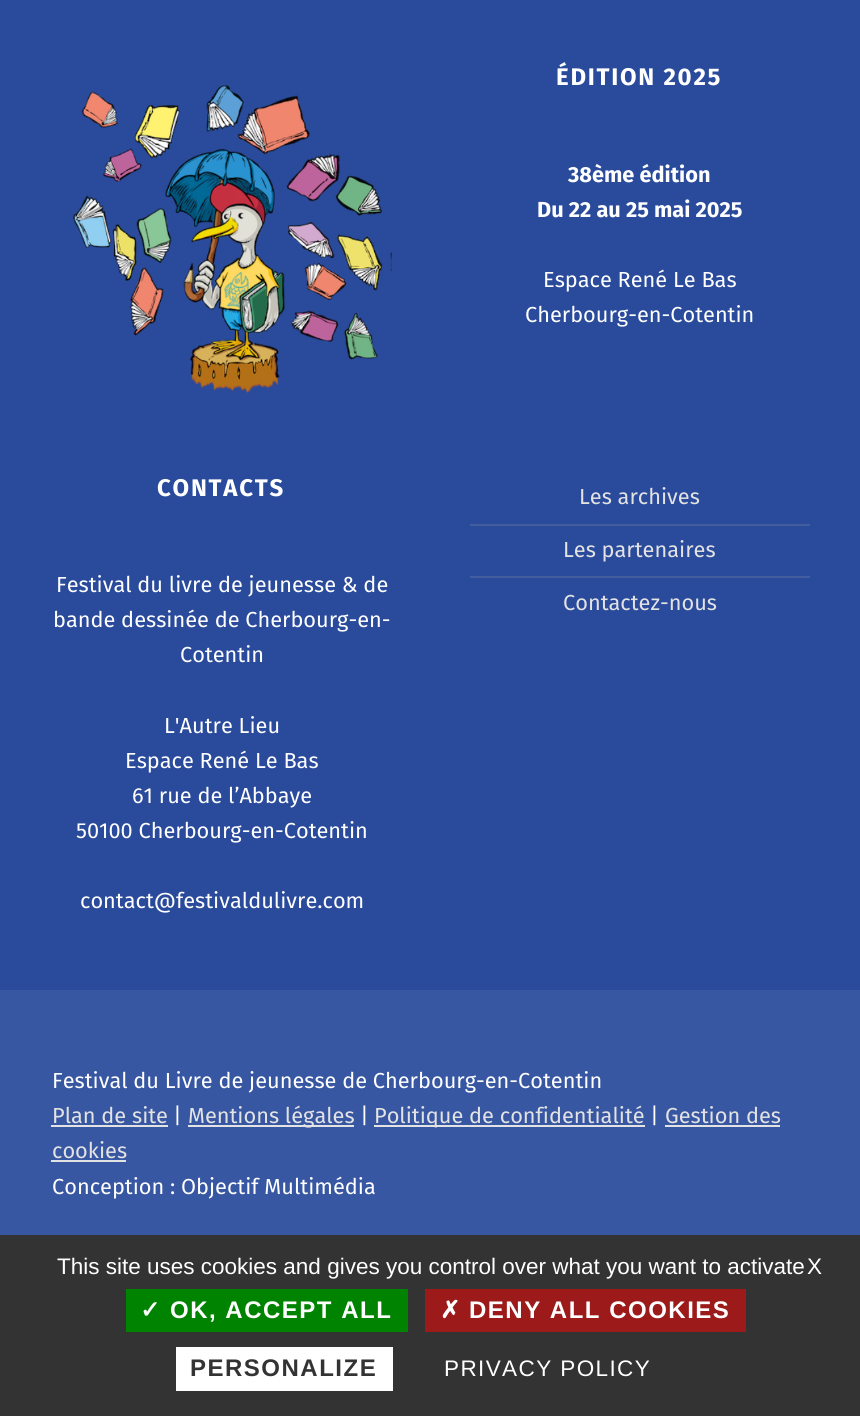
import math
import cairocffi as cairo

surface = cairo.ImageSurface(cairo.FORMAT_RGB24, 860, 1416)
cr = cairo.Context(surface)
options = cairo.FontOptions()
options.set_hint_metrics(cairo.HINT_METRICS_OFF)
options.set_hint_style(cairo.HINT_STYLE_NONE)
cr.set_font_options(options)
cr.set_miter_limit(4)


def use_color(code):
    cr.set_source_rgb(*(v / 255 for v in bytes.fromhex(code[-6:])))


def spaced_text(x, y, s, letter, word):
    cr.move_to(x, y)
    for ch in s:
        cr.show_text(ch)
        cr.rel_move_to(letter + word * (ch == ' '), 0)


def picture(path, x, y, w, h):
    cr.save()
    cr.set_source_surface(cairo.ImageSurface.create_from_png(path), x, y)
    cr.rectangle(x, y, w, h)
    cr.fill()
    cr.restore()


use_color("#2a4b9b")
cr.paint()
picture("img1.png", 73, 85, 319, 308)
cr.select_font_face("Fira Sans", cairo.FONT_SLANT_NORMAL, cairo.FONT_WEIGHT_BOLD)
cr.set_font_size(24)
use_color("#ffffff")
spaced_text(556, 85, "ÉDITION 2025", 1.75, 0)
cr.set_font_size(21.75)
cr.move_to(568, 182)
cr.show_text("38ème édition")
cr.move_to(537, 217)
cr.show_text("Du 22 au 25 mai 2025")
cr.select_font_face("Fira Sans")
cr.move_to(543, 287)
cr.show_text("Espace René Le Bas")
cr.move_to(525, 322)
cr.show_text("Cherbourg-en-Cotentin")
cr.select_font_face("Fira Sans", cairo.FONT_SLANT_NORMAL, cairo.FONT_WEIGHT_BOLD)
cr.set_font_size(24)
spaced_text(157, 496, "CONTACTS", 1.75, 0)
cr.select_font_face("Fira Sans")
cr.set_font_size(21.75)
cr.move_to(56, 592)
cr.show_text("Festival du livre de jeunesse & de")
cr.move_to(53, 627)
cr.show_text("bande dessinée de Cherbourg-en-")
cr.move_to(180, 662)
cr.show_text("Cotentin")
cr.move_to(164, 733)
cr.show_text("L'Autre Lieu")
cr.move_to(125, 768)
cr.show_text("Espace René Le Bas")
cr.move_to(132, 803)
cr.show_text("61 rue de l’Abbaye")
cr.move_to(76, 838)
cr.show_text("50100 Cherbourg-en-Cotentin")
cr.move_to(80, 908)
cr.show_text("contact@festivaldulivre.com")
use_color("#e4e3e3")
cr.move_to(579, 504)
cr.show_text("Les archives")
use_color("#425d9d")
cr.rectangle(470, 524, 340, 2)
cr.fill()
use_color("#e4e3e3")
cr.move_to(563, 557)
cr.show_text("Les partenaires")
use_color("#425d9d")
cr.rectangle(470, 576, 340, 2)
cr.fill()
use_color("#e4e3e3")
cr.move_to(563, 610)
cr.show_text("Contactez-nous")
cr.set_source_rgba(1, 1, 1, 0.07)
cr.rectangle(0, 990, 860, 245)
cr.fill()
use_color("#ffffff")
cr.move_to(52, 1088)
cr.show_text("Festival du Livre de jeunesse de Cherbourg-en-Cotentin")
use_color("#e4e3e3")
cr.move_to(52, 1123)
cr.show_text("Plan de site")
cr.rectangle(51, 1125, 117, 2)
cr.fill()
use_color("#ffffff")
cr.move_to(173, 1123)
cr.show_text("|")
use_color("#e4e3e3")
cr.rectangle(188, 1125, 166, 2)
cr.fill()
cr.move_to(188, 1123)
cr.show_text("Mentions légales")
use_color("#ffffff")
cr.move_to(360, 1123)
cr.show_text("|")
use_color("#e4e3e3")
cr.rectangle(374, 1125, 271, 2)
cr.fill()
cr.move_to(374, 1123)
cr.show_text("Politique de confidentialité")
use_color("#ffffff")
cr.move_to(650, 1123)
cr.show_text("|")
use_color("#e4e3e3")
cr.move_to(665, 1123)
cr.show_text("Gestion des")
cr.rectangle(665, 1125, 115, 2)
cr.fill()
cr.move_to(52, 1158)
cr.show_text("cookies")
cr.rectangle(51, 1160, 75, 2)
cr.fill()
use_color("#ffffff")
cr.move_to(52, 1194)
cr.show_text("Conception : Objectif Multimédia")
use_color("#333333")
cr.rectangle(0, 1235, 860, 181)
cr.fill()
cr.select_font_face("Liberation Sans")
cr.set_font_size(22.5)
use_color("#ffffff")
cr.move_to(57, 1274)
cr.show_text("This site uses cookies and gives you control over what you want to activate")
cr.move_to(807, 1274)
cr.show_text("X")
use_color("#008300")
cr.rectangle(126, 1289, 282, 43)
cr.fill()
cr.select_font_face("DejaVu Sans", cairo.FONT_SLANT_NORMAL, cairo.FONT_WEIGHT_BOLD)
cr.set_font_size(24)
use_color("#ffffff")
spaced_text(140, 1318, "✓", 1.5, 0)
cr.select_font_face("Liberation Sans", cairo.FONT_SLANT_NORMAL, cairo.FONT_WEIGHT_BOLD)
spaced_text(170, 1318, "OK, ACCEPT ALL", 1.5, 0)
use_color("#9c1a1a")
cr.rectangle(425, 1289, 321, 43)
cr.fill()
cr.select_font_face("DejaVu Sans", cairo.FONT_SLANT_NORMAL, cairo.FONT_WEIGHT_BOLD)
use_color("#ffffff")
spaced_text(440, 1318, "✗", 1.5, 0)
cr.select_font_face("Liberation Sans", cairo.FONT_SLANT_NORMAL, cairo.FONT_WEIGHT_BOLD)
spaced_text(469, 1318, "DENY ALL COOKIES", 1.5, 0)
cr.rectangle(176, 1347, 217, 44)
cr.fill()
use_color("#333333")
spaced_text(190, 1376, "PERSONALIZE", 1.5, 0)
cr.select_font_face("Liberation Sans")
cr.set_font_size(22.5)
use_color("#ffffff")
spaced_text(444, 1376, "PRIVACY POLICY", 1.4, 0)
surface.write_to_png("result.png")
